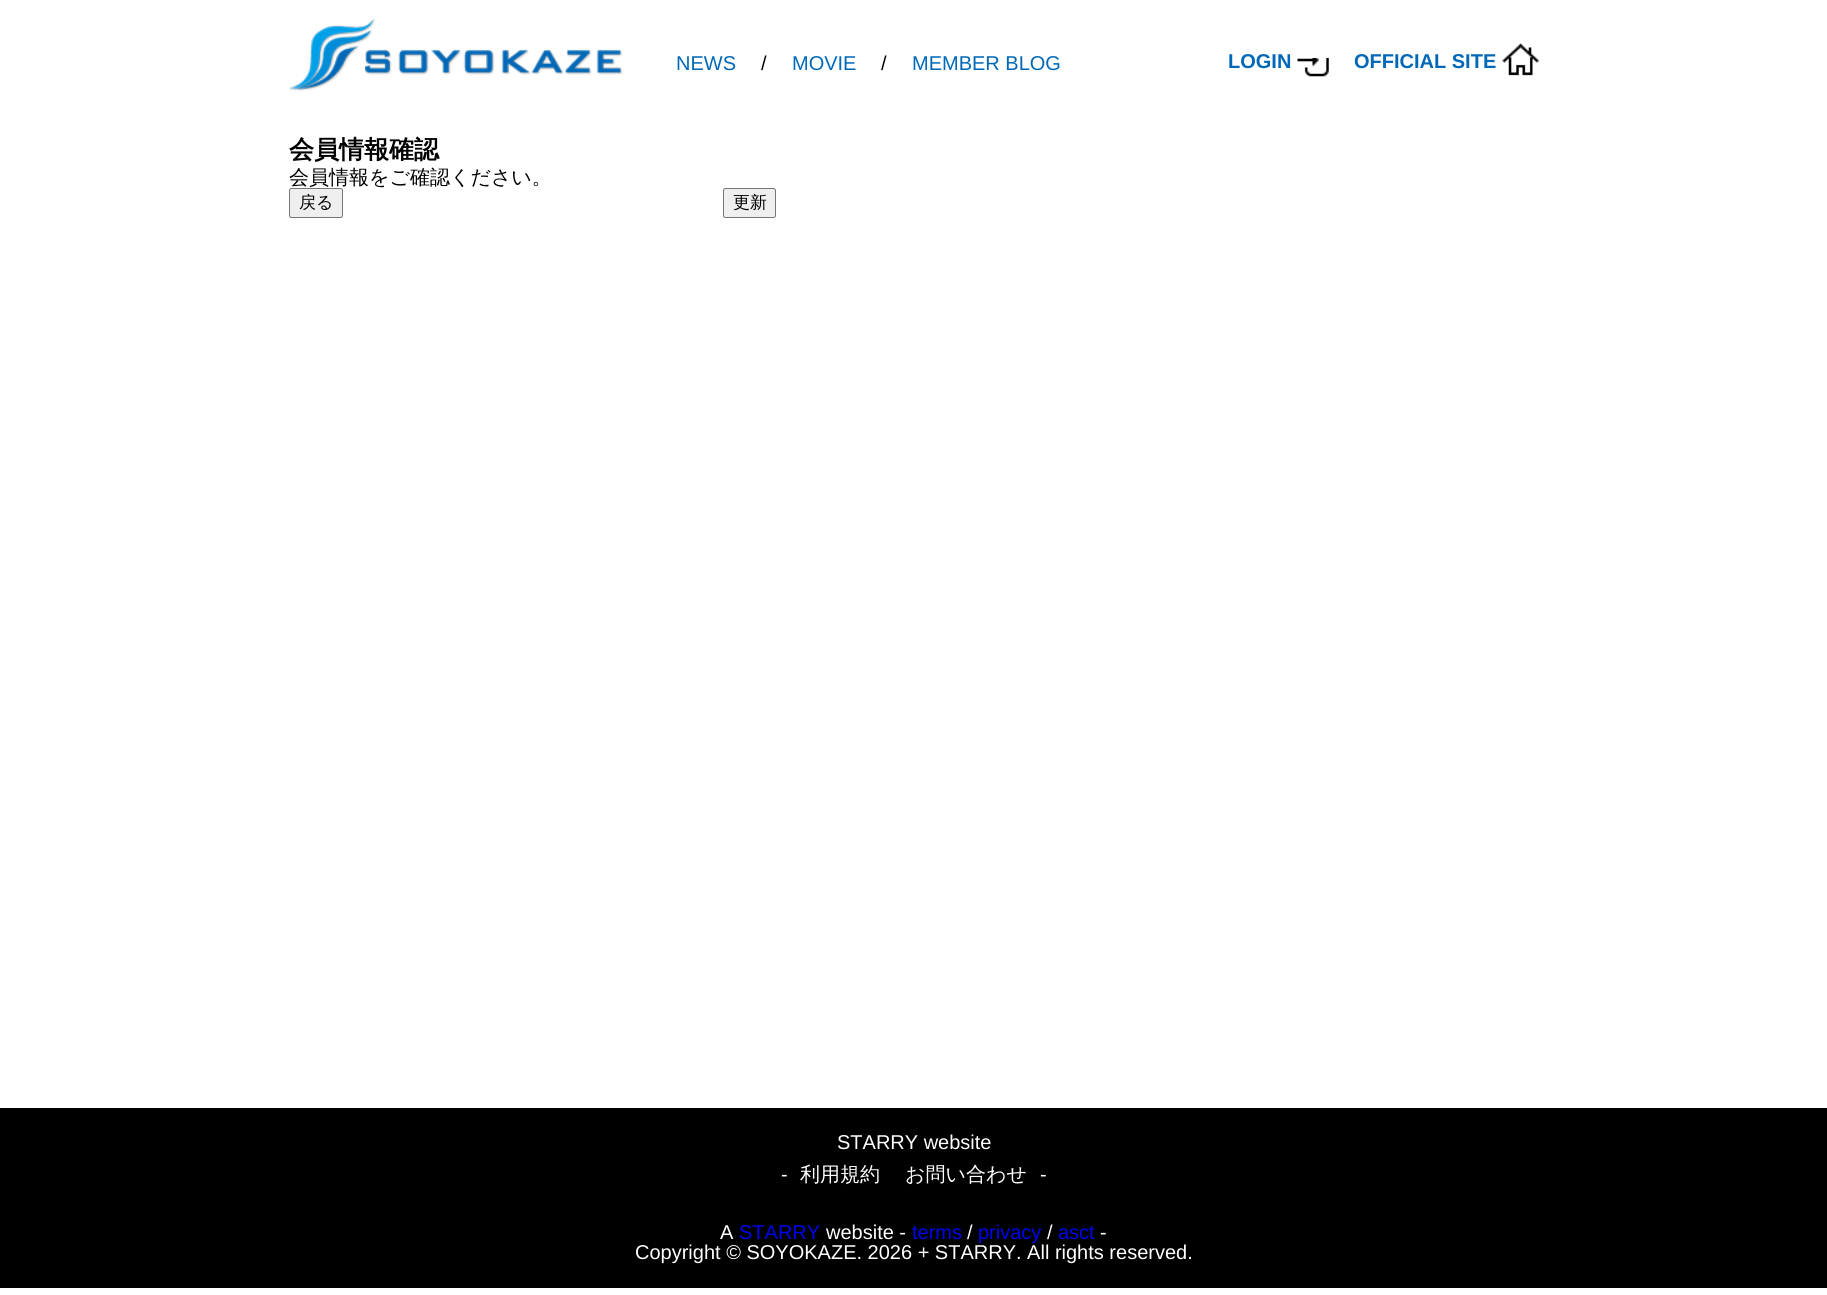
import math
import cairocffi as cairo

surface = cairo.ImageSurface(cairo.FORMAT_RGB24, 1827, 1295)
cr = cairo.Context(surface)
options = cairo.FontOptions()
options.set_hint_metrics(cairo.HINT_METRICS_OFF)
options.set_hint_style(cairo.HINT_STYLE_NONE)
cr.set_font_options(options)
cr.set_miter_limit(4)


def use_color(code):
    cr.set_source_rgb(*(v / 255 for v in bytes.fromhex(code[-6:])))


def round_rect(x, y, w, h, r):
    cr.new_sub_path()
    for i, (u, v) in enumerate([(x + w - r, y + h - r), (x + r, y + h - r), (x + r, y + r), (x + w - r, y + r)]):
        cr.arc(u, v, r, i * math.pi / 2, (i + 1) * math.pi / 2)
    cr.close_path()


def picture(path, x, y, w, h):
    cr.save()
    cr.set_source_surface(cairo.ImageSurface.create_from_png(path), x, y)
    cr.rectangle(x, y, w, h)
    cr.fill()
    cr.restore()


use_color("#ffffff")
cr.paint()
picture("img1.png", 289, 18, 335, 73)
cr.select_font_face("Liberation Sans")
cr.set_font_size(20)
use_color("#0068b7")
cr.move_to(676, 70)
cr.show_text("NEWS")
use_color("#000000")
cr.move_to(761, 70)
cr.show_text("/")
use_color("#0068b7")
cr.move_to(792, 70)
cr.show_text("MOVIE")
use_color("#000000")
cr.move_to(881, 70)
cr.show_text("/")
use_color("#0068b7")
cr.move_to(912, 70)
cr.show_text("MEMBER BLOG")
cr.select_font_face("Liberation Sans", cairo.FONT_SLANT_NORMAL, cairo.FONT_WEIGHT_BOLD)
cr.move_to(1228, 68)
cr.show_text("LOGIN")
picture("img2.png", 1297, 58, 32, 19)
cr.move_to(1354, 68)
cr.show_text("OFFICIAL SITE")
picture("img3.png", 1502, 43, 37, 33)
cr.select_font_face("WenQuanYi Zen Hei", cairo.FONT_SLANT_NORMAL, cairo.FONT_WEIGHT_BOLD)
cr.set_font_size(25)
use_color("#000000")
cr.move_to(289, 158)
cr.show_text("会員情報確認")
cr.select_font_face("WenQuanYi Zen Hei Medium")
cr.set_font_size(20)
cr.move_to(289, 184)
cr.show_text("会員情報をご確認ください。")
use_color("#efefef")
round_rect(289.5, 188.5, 53, 29, 2)
cr.fill_preserve()
use_color("#767676")
cr.set_line_width(1)
cr.stroke()
cr.set_font_size(17)
use_color("#000000")
cr.move_to(299, 208)
cr.show_text("戻る")
use_color("#efefef")
round_rect(723.5, 188.5, 52, 29, 2)
cr.fill_preserve()
use_color("#767676")
cr.stroke()
use_color("#000000")
cr.move_to(733, 208)
cr.show_text("更新")
cr.rectangle(0, 1108, 1827, 180)
cr.fill()
cr.select_font_face("Liberation Sans")
cr.set_font_size(20)
use_color("#ffffff")
cr.move_to(837, 1149)
cr.show_text("STARRY website")
cr.move_to(781, 1181)
cr.show_text("-")
cr.select_font_face("WenQuanYi Zen Hei Medium")
cr.move_to(800, 1181)
cr.show_text("利用規約")
cr.move_to(905, 1181)
cr.show_text("お問い合わせ")
cr.select_font_face("Liberation Sans")
cr.move_to(1040, 1181)
cr.show_text("-")
cr.move_to(720, 1239)
cr.show_text("A")
use_color("#0000ee")
cr.move_to(739, 1239)
cr.show_text("STARRY")
use_color("#ffffff")
cr.move_to(826, 1239)
cr.show_text("website -")
use_color("#0000ee")
cr.move_to(912, 1239)
cr.show_text("terms")
use_color("#ffffff")
cr.move_to(967, 1239)
cr.show_text("/")
use_color("#0000ee")
cr.move_to(978, 1239)
cr.show_text("privacy")
use_color("#ffffff")
cr.move_to(1047, 1239)
cr.show_text("/")
use_color("#0000ee")
cr.move_to(1058, 1239)
cr.show_text("asct")
use_color("#ffffff")
cr.move_to(1100, 1239)
cr.show_text("-")
cr.move_to(635, 1259)
cr.show_text("Copyright © SOYOKAZE. 2026 + STARRY. All rights reserved.")
surface.write_to_png("result.png")
